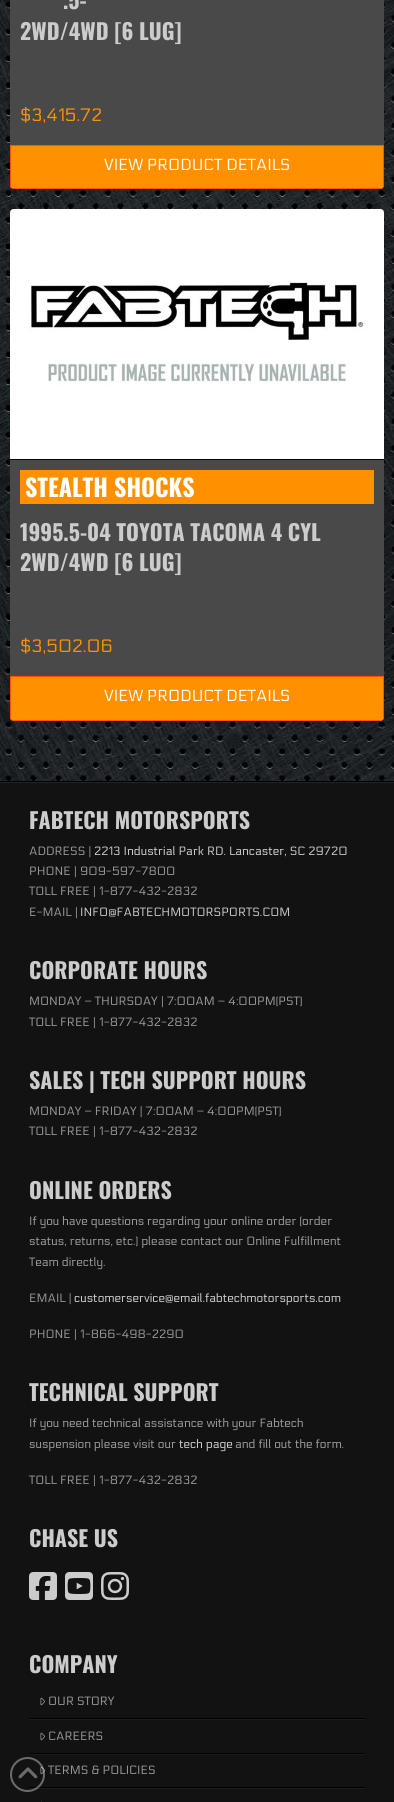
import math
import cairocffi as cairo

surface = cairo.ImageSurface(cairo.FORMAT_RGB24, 394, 1802)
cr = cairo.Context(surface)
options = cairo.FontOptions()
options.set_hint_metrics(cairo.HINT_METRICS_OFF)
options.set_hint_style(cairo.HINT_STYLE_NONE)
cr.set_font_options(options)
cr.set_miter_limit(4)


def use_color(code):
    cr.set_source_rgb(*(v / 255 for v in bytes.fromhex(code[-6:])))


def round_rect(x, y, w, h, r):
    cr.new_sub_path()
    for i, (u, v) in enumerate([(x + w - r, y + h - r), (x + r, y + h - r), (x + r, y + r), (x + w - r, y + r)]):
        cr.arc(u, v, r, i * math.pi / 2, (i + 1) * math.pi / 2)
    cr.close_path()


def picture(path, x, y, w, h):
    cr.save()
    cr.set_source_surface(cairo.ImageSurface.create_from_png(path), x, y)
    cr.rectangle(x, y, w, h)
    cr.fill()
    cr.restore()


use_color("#ffffff")
cr.paint()
picture("img1.png", 0, 0, 394, 781)
use_color("#49494a")
round_rect(10, -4, 374, 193, 4)
cr.fill()
cr.select_font_face("Oswald", cairo.FONT_SLANT_NORMAL, cairo.FONT_WEIGHT_BOLD)
cr.set_font_size(22)
use_color("#cccccc")
cr.move_to(63, 9)
cr.show_text(".5-")
cr.move_to(20, 40)
cr.show_text("2WD/4WD [6 LUG]")
cr.select_font_face("Electrolize")
cr.set_font_size(18)
use_color("#ff9000")
cr.move_to(20, 121)
cr.show_text("$3,415.72")
cr.new_path()
cr.move_to(10, 145)
cr.line_to(384, 145)
cr.line_to(384, 185)
cr.curve_to(384, 187, 382, 189, 380, 189)
cr.line_to(14, 189)
cr.curve_to(12, 189, 10, 187, 10, 185)
cr.close_path()
cr.fill()
use_color("#ff5300")
cr.set_fill_rule(cairo.FILL_RULE_EVEN_ODD)
cr.new_path()
cr.move_to(11, 146)
cr.line_to(383, 146)
cr.line_to(383, 188)
cr.curve_to(384, 187, 384, 186, 384, 185)
cr.line_to(384, 145)
cr.line_to(10, 145)
cr.line_to(10, 185)
cr.curve_to(10, 186, 10, 187, 11, 188)
cr.close_path()
cr.move_to(380, 189)
cr.line_to(383, 188)
cr.line_to(11, 188)
cr.line_to(14, 189)
cr.close_path()
cr.fill()
cr.set_font_size(16)
use_color("#ffffff")
cr.move_to(104, 170)
cr.show_text("VIEW PRODUCT DETAILS")
use_color("#49494a")
round_rect(10, 209, 374, 512, 4)
cr.fill()
use_color("#050505")
cr.rectangle(10, 459, 374, 1)
cr.fill()
picture("img2.png", 10, 209, 374, 250)
use_color("#ff9000")
cr.rectangle(20, 470, 354, 34)
cr.fill()
cr.select_font_face("Oswald", cairo.FONT_SLANT_NORMAL, cairo.FONT_WEIGHT_BOLD)
cr.set_font_size(24)
use_color("#ffffff")
cr.move_to(25, 497)
cr.show_text("STEALTH SHOCKS")
cr.set_font_size(22)
use_color("#cccccc")
cr.move_to(20, 541)
cr.show_text("1995.5-04 TOYOTA TACOMA 4 CYL")
cr.move_to(20, 571)
cr.show_text("2WD/4WD [6 LUG]")
cr.select_font_face("Electrolize")
cr.set_font_size(18)
use_color("#ff9000")
cr.move_to(20, 652)
cr.show_text("$3,502.06")
cr.new_path()
cr.move_to(10, 676)
cr.line_to(384, 676)
cr.line_to(384, 717)
cr.curve_to(384, 719, 382, 721, 380, 721)
cr.line_to(14, 721)
cr.curve_to(12, 721, 10, 719, 10, 717)
cr.close_path()
cr.fill()
use_color("#ff5300")
cr.new_path()
cr.move_to(11, 677)
cr.line_to(383, 677)
cr.line_to(383, 720)
cr.curve_to(384, 719, 384, 718, 384, 717)
cr.line_to(384, 676)
cr.line_to(10, 676)
cr.line_to(10, 717)
cr.curve_to(10, 718, 10, 719, 11, 720)
cr.close_path()
cr.move_to(380, 721)
cr.line_to(383, 720)
cr.line_to(11, 720)
cr.line_to(14, 721)
cr.close_path()
cr.fill()
cr.set_font_size(16)
use_color("#ffffff")
cr.move_to(104, 701)
cr.show_text("VIEW PRODUCT DETAILS")
use_color("#121212")
cr.rectangle(0, 783, 394, 1019)
cr.fill()
use_color("#242424")
cr.rectangle(0, 782, 394, 1)
cr.fill()
use_color("#000000")
cr.rectangle(0, 781, 394, 1)
cr.fill()
cr.select_font_face("Oswald", cairo.FONT_SLANT_NORMAL, cairo.FONT_WEIGHT_BOLD)
cr.set_font_size(22)
use_color("#cccccc")
cr.move_to(29, 829)
cr.show_text("FABTECH MOTORSPORTS")
cr.select_font_face("Electrolize")
cr.set_font_size(12)
use_color("#999999")
cr.move_to(29, 855)
cr.show_text("ADDRESS |")
use_color("#cccccc")
cr.move_to(94, 855)
cr.show_text("2213 Industrial Park RD. Lancaster, SC 29720")
use_color("#999999")
cr.move_to(29, 875)
cr.show_text("PHONE | 909-597-7800")
cr.move_to(29, 895)
cr.show_text("TOLL FREE | 1-877-432-2832")
cr.move_to(29, 916)
cr.show_text("E-MAIL |")
use_color("#cccccc")
cr.move_to(80, 916)
cr.show_text("INFO@FABTECHMOTORSPORTS.COM")
cr.select_font_face("Oswald", cairo.FONT_SLANT_NORMAL, cairo.FONT_WEIGHT_BOLD)
cr.set_font_size(22)
cr.move_to(29, 979)
cr.show_text("CORPORATE HOURS")
cr.select_font_face("Electrolize")
cr.set_font_size(12)
use_color("#999999")
cr.move_to(29, 1005)
cr.show_text("MONDAY – THURSDAY | 7:00AM – 4:00PM(PST)")
cr.move_to(29, 1026)
cr.show_text("TOLL FREE | 1-877-432-2832")
cr.select_font_face("Oswald", cairo.FONT_SLANT_NORMAL, cairo.FONT_WEIGHT_BOLD)
cr.set_font_size(22)
use_color("#cccccc")
cr.move_to(29, 1089)
cr.show_text("SALES | TECH SUPPORT HOURS")
cr.select_font_face("Electrolize")
cr.set_font_size(12)
use_color("#999999")
cr.move_to(29, 1115)
cr.show_text("MONDAY – FRIDAY | 7:00AM – 4:00PM(PST)")
cr.move_to(29, 1135)
cr.show_text("TOLL FREE | 1-877-432-2832")
cr.select_font_face("Oswald", cairo.FONT_SLANT_NORMAL, cairo.FONT_WEIGHT_BOLD)
cr.set_font_size(22)
use_color("#cccccc")
cr.move_to(29, 1199)
cr.show_text("ONLINE ORDERS")
cr.select_font_face("Electrolize")
cr.set_font_size(12)
use_color("#999999")
cr.move_to(29, 1225)
cr.show_text("If you have questions regarding your online order (order")
cr.move_to(29, 1245)
cr.show_text("status, returns, etc.) please contact our Online Fulfillment")
cr.move_to(29, 1266)
cr.show_text("Team directly.")
cr.move_to(29, 1302)
cr.show_text("EMAIL |")
use_color("#cccccc")
cr.move_to(74, 1302)
cr.show_text("customerservice@email.fabtechmotorsports.com")
use_color("#999999")
cr.move_to(29, 1338)
cr.show_text("PHONE | 1-866-498-2290")
cr.select_font_face("Oswald", cairo.FONT_SLANT_NORMAL, cairo.FONT_WEIGHT_BOLD)
cr.set_font_size(22)
use_color("#cccccc")
cr.move_to(29, 1401)
cr.show_text("TECHNICAL SUPPORT")
cr.select_font_face("Electrolize")
cr.set_font_size(12)
use_color("#999999")
cr.move_to(29, 1427)
cr.show_text("If you need technical assistance with your Fabtech")
cr.move_to(29, 1448)
cr.show_text("suspension please visit our")
use_color("#cccccc")
cr.move_to(179, 1448)
cr.show_text("tech page")
use_color("#999999")
cr.move_to(235, 1448)
cr.show_text("and fill out the form.")
cr.move_to(29, 1484)
cr.show_text("TOLL FREE | 1-877-432-2832")
cr.select_font_face("Oswald", cairo.FONT_SLANT_NORMAL, cairo.FONT_WEIGHT_BOLD)
cr.set_font_size(22)
use_color("#cccccc")
cr.move_to(29, 1547)
cr.show_text("CHASE US")
picture("img3.png", 29, 1572, 28, 28)
picture("img4.png", 65, 1572, 28, 28)
picture("img5.png", 101, 1572, 28, 28)
cr.move_to(29, 1673)
cr.show_text("COMPANY")
use_color("#1c1c1c")
cr.rectangle(29, 1719, 336, 1)
cr.fill()
use_color("#010101")
cr.rectangle(29, 1718, 336, 1)
cr.fill()
picture("img6.png", 40, 1697, 5, 9)
cr.select_font_face("Electrolize")
cr.set_font_size(12)
use_color("#999999")
cr.move_to(48, 1705)
cr.show_text("OUR STORY")
use_color("#1c1c1c")
cr.rectangle(29, 1754, 336, 1)
cr.fill()
use_color("#010101")
cr.rectangle(29, 1753, 336, 1)
cr.fill()
picture("img6.png", 40, 1732, 5, 9)
use_color("#999999")
cr.move_to(48, 1740)
cr.show_text("CAREERS")
use_color("#1c1c1c")
cr.rectangle(29, 1788, 336, 1)
cr.fill()
use_color("#010101")
cr.rectangle(29, 1787, 336, 1)
cr.fill()
picture("img6.png", 40, 1766, 5, 9)
use_color("#999999")
cr.move_to(48, 1774)
cr.show_text("TERMS & POLICIES")
use_color("#292929")
cr.rectangle(41, 1801, 1, 1)
cr.fill()
cr.arc(27.5, 1774.5, 16.5, 0, 2 * math.pi)
cr.set_source_rgba(1, 1, 1, 0.38)
cr.stroke()
picture("img7.png", 18, 1767, 20, 12)
surface.write_to_png("result.png")
